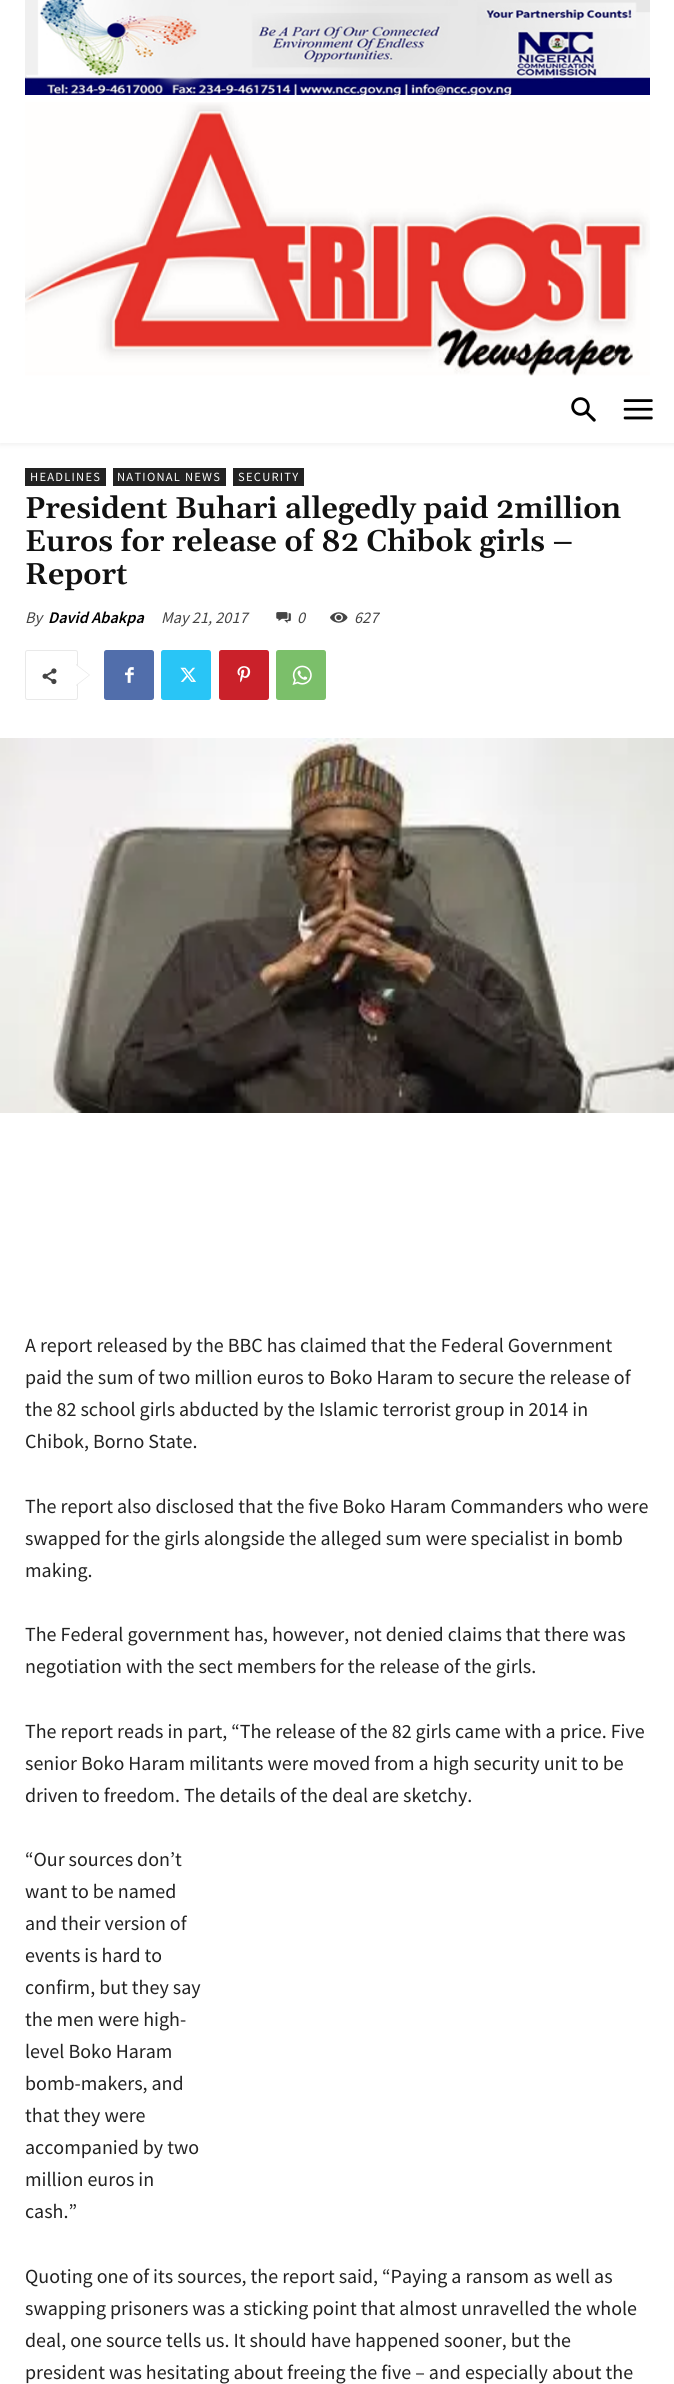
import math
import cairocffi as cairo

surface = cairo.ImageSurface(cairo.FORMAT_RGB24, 674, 2384)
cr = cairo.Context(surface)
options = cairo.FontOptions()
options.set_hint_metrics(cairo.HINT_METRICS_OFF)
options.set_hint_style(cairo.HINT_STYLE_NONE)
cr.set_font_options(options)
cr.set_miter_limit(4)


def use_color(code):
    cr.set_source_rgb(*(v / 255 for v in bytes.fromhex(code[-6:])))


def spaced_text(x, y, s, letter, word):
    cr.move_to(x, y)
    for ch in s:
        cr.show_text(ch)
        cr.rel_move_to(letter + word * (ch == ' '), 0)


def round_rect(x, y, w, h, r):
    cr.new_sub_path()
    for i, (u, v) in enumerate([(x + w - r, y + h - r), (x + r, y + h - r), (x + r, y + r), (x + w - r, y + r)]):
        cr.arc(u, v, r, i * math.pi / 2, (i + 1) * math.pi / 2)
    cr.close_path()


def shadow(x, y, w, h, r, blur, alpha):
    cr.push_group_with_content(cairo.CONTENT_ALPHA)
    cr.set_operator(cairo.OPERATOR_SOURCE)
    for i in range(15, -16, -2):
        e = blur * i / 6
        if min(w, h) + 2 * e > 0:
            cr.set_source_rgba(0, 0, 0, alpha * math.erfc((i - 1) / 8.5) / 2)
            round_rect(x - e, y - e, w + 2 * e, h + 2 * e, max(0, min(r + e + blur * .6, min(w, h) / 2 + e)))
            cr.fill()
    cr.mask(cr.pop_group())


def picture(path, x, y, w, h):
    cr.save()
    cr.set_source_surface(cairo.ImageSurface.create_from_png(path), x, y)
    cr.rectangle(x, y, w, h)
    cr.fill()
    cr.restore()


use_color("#ffffff")
cr.paint()
picture("img1.png", 25, 0, 625, 95)
picture("img2.png", 25, 102, 625, 274)
picture("img3.png", 571, 397, 25, 25)
picture("img4.png", 623, 399, 30, 21)
cr.save()
cr.set_fill_rule(cairo.FILL_RULE_EVEN_ODD)
cr.new_path()
cr.move_to(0, 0)
cr.line_to(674, 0)
cr.line_to(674, 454)
cr.line_to(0, 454)
cr.close_path()
cr.move_to(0, 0)
cr.line_to(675, 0)
cr.line_to(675, 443)
cr.line_to(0, 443)
cr.close_path()
cr.clip()
use_color("#000000")
shadow(0, 3, 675, 442, 0, 2.5, 0.06)
cr.restore()
use_color("#222222")
cr.rectangle(25, 468, 81, 18)
cr.fill()
cr.select_font_face("Source Sans Pro")
cr.set_font_size(12.5)
use_color("#ffffff")
spaced_text(30, 481, "HEADLINES", 1.25, 0)
use_color("#222222")
cr.rectangle(113, 468, 113, 18)
cr.fill()
use_color("#ffffff")
spaced_text(117, 481, "NATIONAL NEWS", 1.25, 0)
use_color("#222222")
cr.rectangle(233, 468, 71, 18)
cr.fill()
use_color("#ffffff")
spaced_text(238, 481, "SECURITY", 1.25, 0)
cr.select_font_face("Gelasio SemiBold")
cr.set_font_size(30)
use_color("#111111")
cr.move_to(25, 518)
cr.show_text("President Buhari allegedly paid 2million")
cr.move_to(25, 551)
cr.show_text("Euros for release of 82 Chibok girls –")
cr.move_to(25, 584)
cr.show_text("Report")
cr.select_font_face("Source Sans Pro", cairo.FONT_SLANT_ITALIC)
cr.set_font_size(16.25)
use_color("#444444")
cr.move_to(25, 623)
cr.show_text("By")
cr.select_font_face("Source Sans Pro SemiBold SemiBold", cairo.FONT_SLANT_ITALIC)
use_color("#000000")
cr.move_to(48, 623)
cr.show_text("David Abakpa")
cr.select_font_face("Source Sans Pro", cairo.FONT_SLANT_ITALIC)
use_color("#444444")
cr.move_to(161, 623)
cr.show_text("May 21, 2017")
picture("img5.png", 276, 612, 15, 12)
cr.move_to(297, 623)
cr.show_text("0")
picture("img6.png", 330, 612, 18, 11)
cr.move_to(354, 623)
cr.show_text("627")
round_rect(25.5, 650.5, 52, 49, 2)
use_color("#e9e9e9")
cr.set_line_width(1)
cr.stroke()
cr.new_path()
cr.move_to(76, 686)
cr.line_to(76, 664)
cr.line_to(90, 675)
cr.close_path()
cr.fill()
picture("img7.png", 42, 668, 15, 17)
use_color("#ffffff")
cr.new_path()
cr.move_to(76, 685)
cr.line_to(76, 665)
cr.line_to(89, 675)
cr.close_path()
cr.fill()
use_color("#516eab")
round_rect(104, 650, 50, 50, 2.5)
cr.fill()
picture("img8.png", 125, 667, 9, 16)
use_color("#29c5f6")
round_rect(161, 650, 50, 50, 2.5)
cr.fill()
picture("img9.png", 180, 667, 16, 15)
use_color("#ca212a")
round_rect(219, 650, 50, 50, 2.5)
cr.fill()
picture("img10.png", 237, 666, 14, 17)
use_color("#7bbf6a")
round_rect(276, 650, 50, 50, 2.5)
cr.fill()
picture("img11.png", 292, 665, 20, 20)
picture("img12.png", 0, 738, 674, 375)
cr.select_font_face("Source Sans Pro")
cr.set_font_size(20)
use_color("#222222")
cr.move_to(25, 1352)
cr.show_text("A report released by the BBC has claimed that the Federal Government")
cr.move_to(25, 1384)
cr.show_text("paid the sum of two million euros to Boko Haram to secure the release of")
cr.move_to(25, 1416)
cr.show_text("the 82 school girls abducted by the Islamic terrorist group in 2014 in")
cr.move_to(25, 1448)
cr.show_text("Chibok, Borno State.")
cr.move_to(25, 1513)
cr.show_text("The report also disclosed that the five Boko Haram Commanders who were")
cr.move_to(25, 1545)
cr.show_text("swapped for the girls alongside the alleged sum were specialist in bomb")
cr.move_to(25, 1577)
cr.show_text("making.")
cr.move_to(25, 1641)
cr.show_text("The Federal government has, however, not denied claims that there was")
cr.move_to(25, 1673)
cr.show_text("negotiation with the sect members for the release of the girls.")
cr.move_to(25, 1738)
cr.show_text("The report reads in part, “The release of the 82 girls came with a price. Five")
cr.move_to(25, 1770)
cr.show_text("senior Boko Haram militants were moved from a high security unit to be")
cr.move_to(25, 1802)
cr.show_text("driven to freedom. The details of the deal are sketchy.")
cr.move_to(25, 1866)
cr.show_text("“Our sources don’t")
cr.move_to(25, 1898)
cr.show_text("want to be named")
cr.move_to(25, 1930)
cr.show_text("and their version of")
cr.move_to(25, 1962)
cr.show_text("events is hard to")
cr.move_to(25, 1994)
cr.show_text("confirm, but they say")
cr.move_to(25, 2026)
cr.show_text("the men were high-")
cr.move_to(25, 2058)
cr.show_text("level Boko Haram")
cr.move_to(25, 2090)
cr.show_text("bomb-makers, and")
cr.move_to(25, 2122)
cr.show_text("that they were")
cr.move_to(25, 2154)
cr.show_text("accompanied by two")
cr.move_to(25, 2186)
cr.show_text("million euros in")
cr.move_to(25, 2218)
cr.show_text("cash.”")
cr.move_to(25, 2283)
cr.show_text("Quoting one of its sources, the report said, “Paying a ransom as well as")
cr.move_to(25, 2315)
cr.show_text("swapping prisoners was a sticking point that almost unravelled the whole")
cr.move_to(25, 2347)
cr.show_text("deal, one source tells us. It should have happened sooner, but the")
cr.move_to(25, 2379)
cr.show_text("president was hesitating about freeing the five – and especially about the")
surface.write_to_png("result.png")
